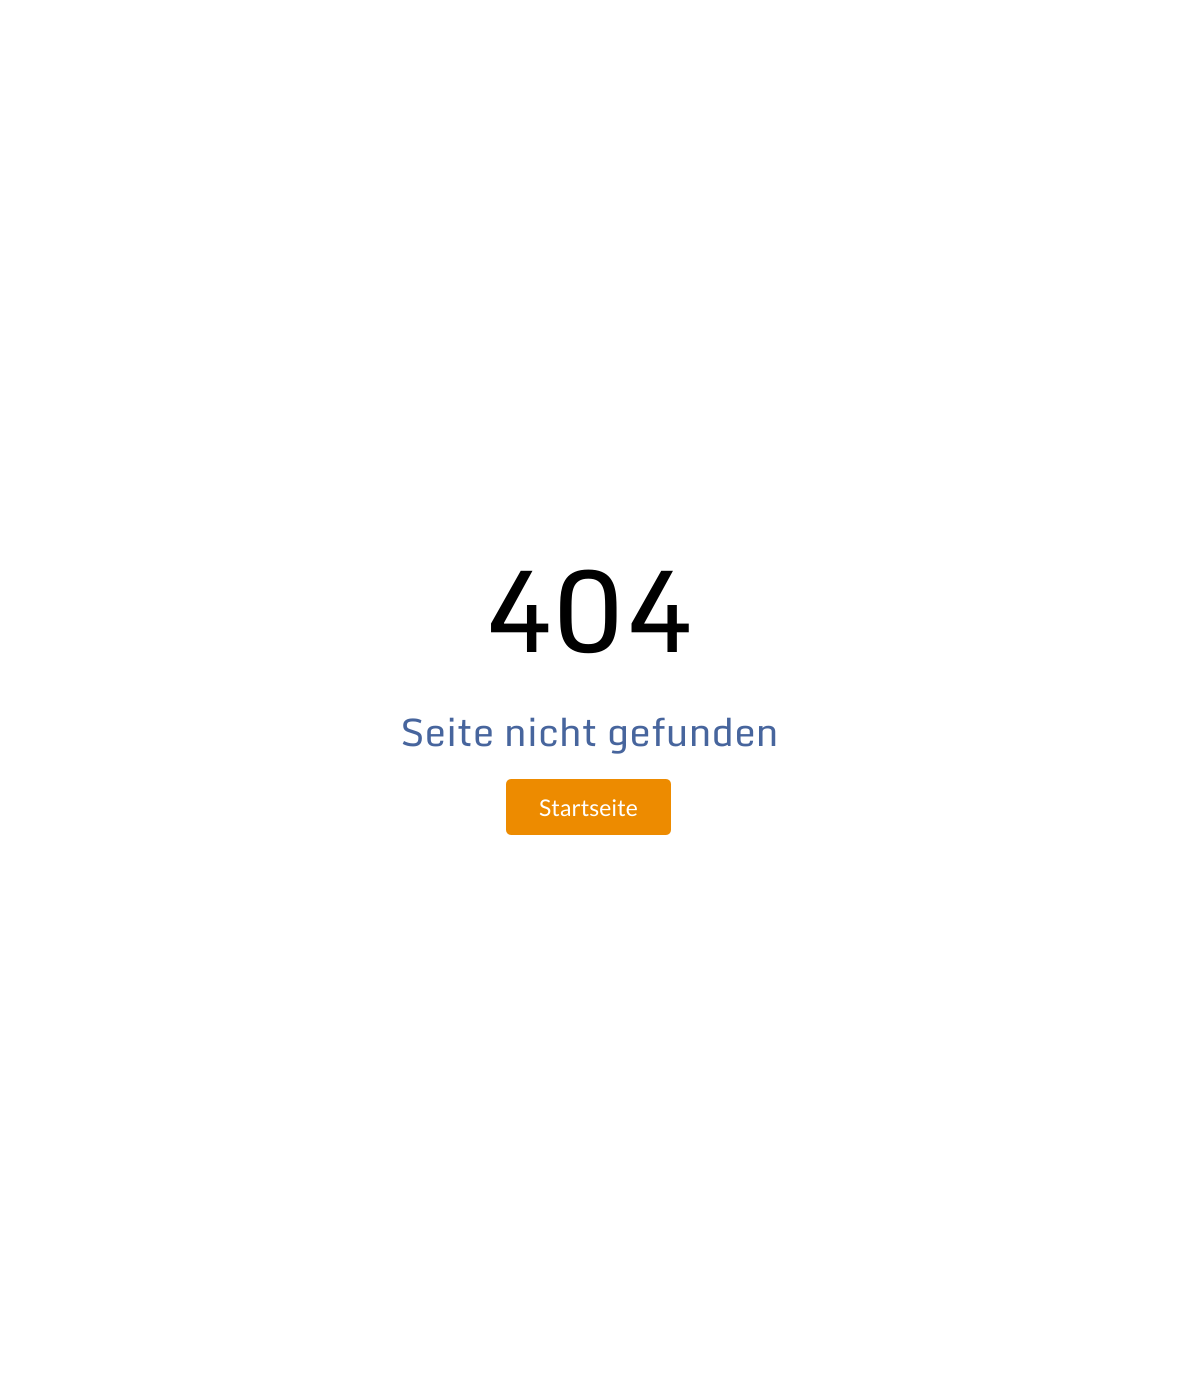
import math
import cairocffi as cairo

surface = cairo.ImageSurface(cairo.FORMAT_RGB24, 1177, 1385)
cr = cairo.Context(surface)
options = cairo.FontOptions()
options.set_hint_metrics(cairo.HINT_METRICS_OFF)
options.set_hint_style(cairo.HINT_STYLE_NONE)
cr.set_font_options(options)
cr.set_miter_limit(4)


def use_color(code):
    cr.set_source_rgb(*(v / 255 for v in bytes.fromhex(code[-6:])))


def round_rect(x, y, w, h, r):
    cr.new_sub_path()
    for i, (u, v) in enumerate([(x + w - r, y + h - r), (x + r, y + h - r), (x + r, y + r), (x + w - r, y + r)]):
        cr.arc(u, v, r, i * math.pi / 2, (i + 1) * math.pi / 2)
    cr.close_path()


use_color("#ffffff")
cr.paint()
cr.select_font_face("Monda")
cr.set_font_size(115)
use_color("#000000")
cr.move_to(483, 652)
cr.show_text("404")
cr.set_font_size(38.5)
use_color("#47659d")
cr.move_to(400, 746)
cr.show_text("Seite nicht gefunden")
use_color("#ed8b00")
round_rect(507.5, 780.5, 162, 53, 3.5)
cr.fill_preserve()
cr.set_line_width(3)
cr.stroke()
cr.select_font_face("Lato")
cr.set_font_size(23)
use_color("#ffffff")
cr.move_to(539, 816)
cr.show_text("Startseite")
surface.write_to_png("result.png")
